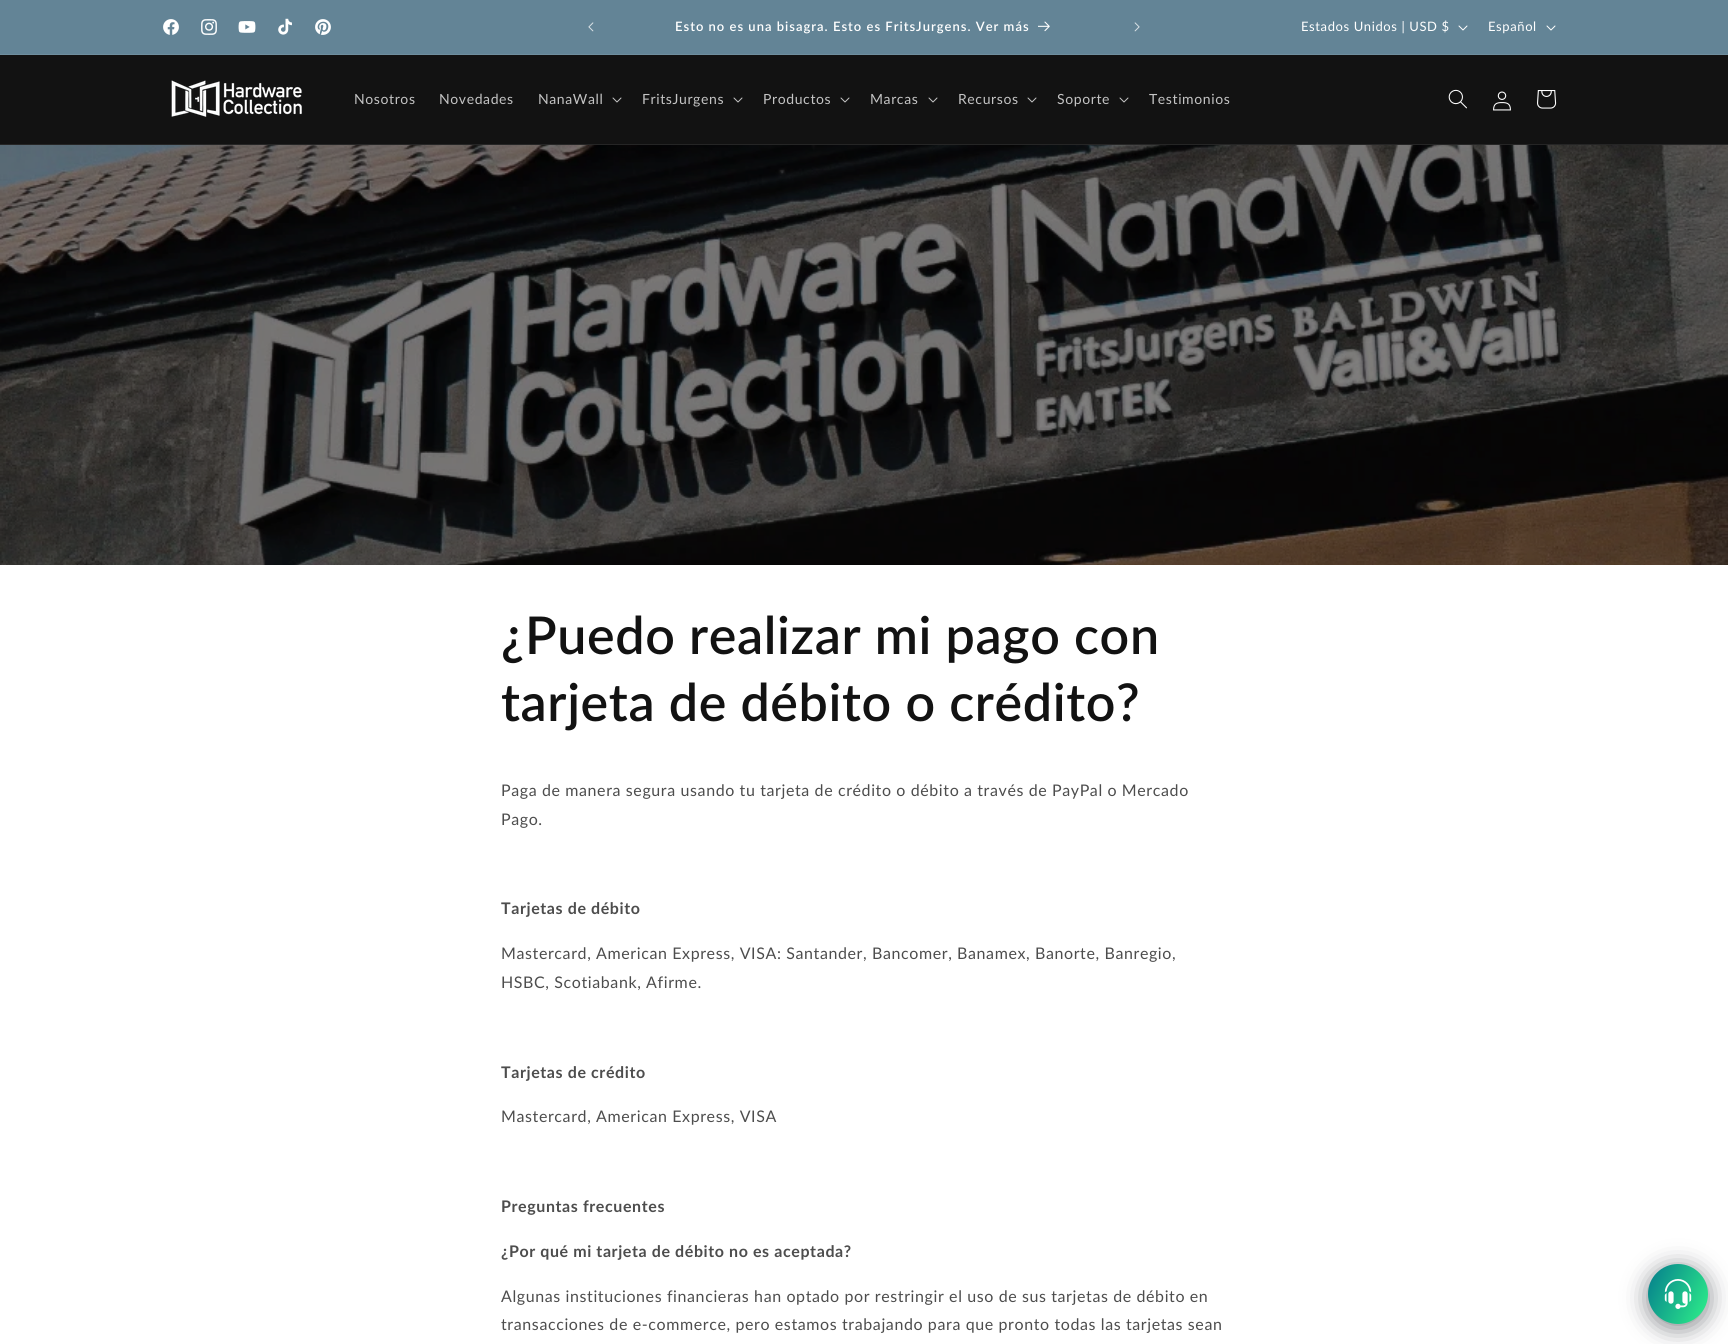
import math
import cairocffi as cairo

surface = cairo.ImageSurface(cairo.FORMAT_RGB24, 1728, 1344)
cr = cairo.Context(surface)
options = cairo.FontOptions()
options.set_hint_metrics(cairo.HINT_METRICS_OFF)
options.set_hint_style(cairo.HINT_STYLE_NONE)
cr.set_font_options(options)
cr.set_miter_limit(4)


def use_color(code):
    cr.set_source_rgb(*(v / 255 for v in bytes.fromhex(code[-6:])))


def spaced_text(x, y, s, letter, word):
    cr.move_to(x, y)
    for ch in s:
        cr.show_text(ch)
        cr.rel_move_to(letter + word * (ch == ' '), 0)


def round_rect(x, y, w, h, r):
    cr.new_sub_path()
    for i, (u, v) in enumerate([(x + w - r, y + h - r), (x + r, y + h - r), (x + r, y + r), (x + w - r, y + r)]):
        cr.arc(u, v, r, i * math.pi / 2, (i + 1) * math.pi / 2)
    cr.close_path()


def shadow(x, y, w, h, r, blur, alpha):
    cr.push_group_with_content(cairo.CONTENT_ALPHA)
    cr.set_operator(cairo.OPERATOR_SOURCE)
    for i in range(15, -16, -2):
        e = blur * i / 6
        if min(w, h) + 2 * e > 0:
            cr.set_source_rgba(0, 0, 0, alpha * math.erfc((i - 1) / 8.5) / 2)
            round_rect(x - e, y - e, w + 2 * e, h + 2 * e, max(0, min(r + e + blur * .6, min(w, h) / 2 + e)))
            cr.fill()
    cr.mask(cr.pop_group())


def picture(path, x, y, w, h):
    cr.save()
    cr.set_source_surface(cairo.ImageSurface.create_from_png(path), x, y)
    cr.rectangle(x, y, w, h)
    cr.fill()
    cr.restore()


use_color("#ffffff")
cr.paint()
use_color("#638496")
cr.rectangle(0, 0, 1728, 54)
cr.fill()
use_color("#6f8e9e")
cr.rectangle(0, 54, 1728, 1)
cr.fill()
picture("img1.png", 163, 19, 16, 16)
picture("img2.png", 201, 19, 16, 16)
picture("img3.png", 238, 21, 18, 12)
picture("img4.png", 278, 18, 14, 17)
picture("img5.png", 315, 19, 16, 16)
picture("img6.png", 588, 22, 6, 10)
cr.select_font_face("Lato SemiBold")
cr.set_font_size(13)
use_color("#ffffff")
spaced_text(675, 31, "Esto no es una bisagra. Esto es FritsJurgens. Ver más", 1, 0)
picture("img7.png", 1038, 21, 12, 11)
picture("img8.png", 1134, 22, 6, 10)
cr.select_font_face("Lato")
spaced_text(1301, 31, "Estados Unidos | USD $", 0.6, 0)
picture("img9.png", 1458, 25, 10, 6)
spaced_text(1488, 31, "Español", 0.6, 0)
picture("img9.png", 1546, 25, 10, 6)
use_color("#121212")
cr.rectangle(0, 55, 1728, 89)
cr.fill()
use_color("#252525")
cr.rectangle(0, 144, 1728, 1)
cr.fill()
picture("img10.png", 171, 80, 131, 37)
cr.set_font_size(14)
use_color("#c4c4c4")
spaced_text(354, 104, "Nosotros", 0.6, 0)
spaced_text(439, 104, "Novedades", 0.6, 0)
spaced_text(538, 104, "NanaWall", 0.6, 0)
picture("img11.png", 612, 97, 10, 6)
spaced_text(642, 104, "FritsJurgens", 0.6, 0)
picture("img11.png", 733, 97, 10, 6)
spaced_text(763, 104, "Productos", 0.6, 0)
picture("img11.png", 840, 97, 10, 6)
spaced_text(870, 104, "Marcas", 0.6, 0)
picture("img11.png", 928, 97, 10, 6)
spaced_text(958, 104, "Recursos", 0.6, 0)
picture("img11.png", 1027, 97, 10, 6)
spaced_text(1057, 104, "Soporte", 0.6, 0)
picture("img11.png", 1119, 97, 10, 6)
spaced_text(1149, 104, "Testimonios", 0.6, 0)
picture("img12.png", 1448, 89, 19, 20)
picture("img13.png", 1493, 91, 18, 20)
picture("img14.png", 1537, 90, 20, 19)
picture("img15.png", 0, 145, 1728, 420)
cr.select_font_face("Lato SemiBold")
cr.set_font_size(52)
use_color("#121212")
spaced_text(501, 654, "¿Puedo realizar mi pago con", 0.6, 0)
spaced_text(501, 721, "tarjeta de débito o crédito?", 0.6, 0)
cr.select_font_face("Lato")
cr.set_font_size(16)
use_color("#4d4d4d")
spaced_text(501, 796, "Paga de manera segura usando tu tarjeta de crédito o débito a través de PayPal o Mercado", 0.6, 0)
spaced_text(501, 825, "Pago.", 0.6, 0)
cr.select_font_face("Lato", cairo.FONT_SLANT_NORMAL, cairo.FONT_WEIGHT_BOLD)
spaced_text(501, 914, "Tarjetas de débito", 0.6, 0)
cr.select_font_face("Lato")
spaced_text(501, 959, "Mastercard, American Express, VISA: Santander, Bancomer, Banamex, Banorte, Banregio,", 0.6, 0)
spaced_text(501, 988, "HSBC, Scotiabank, Afirme.", 0.6, 0)
cr.select_font_face("Lato", cairo.FONT_SLANT_NORMAL, cairo.FONT_WEIGHT_BOLD)
spaced_text(501, 1078, "Tarjetas de crédito", 0.6, 0)
cr.select_font_face("Lato")
spaced_text(501, 1122, "Mastercard, American Express, VISA", 0.6, 0)
cr.select_font_face("Lato", cairo.FONT_SLANT_NORMAL, cairo.FONT_WEIGHT_BOLD)
spaced_text(501, 1212, "Preguntas frecuentes", 0.6, 0)
spaced_text(501, 1257, "¿Por qué mi tarjeta de débito no es aceptada?", 0.6, 0)
cr.select_font_face("Lato")
spaced_text(501, 1302, "Algunas instituciones financieras han optado por restringir el uso de sus tarjetas de débito en", 0.6, 0)
spaced_text(501, 1330, "transacciones de e-commerce, pero estamos trabajando para que pronto todas las tarjetas sean", 0.6, 0)
use_color("#020610")
shadow(1648, 1268, 60, 60, 30, 12, 0.5)
gradient = cairo.LinearGradient(1642, 1277, 1714, 1311)
gradient.add_color_stop_rgba(0, 0.016, 0.486, 0.553, 1)
gradient.add_color_stop_rgba(1, 0.184, 0.949, 0.537, 1)
cr.set_source(gradient)
cr.arc(1678, 1294, 30, 0, 2 * math.pi)
cr.fill()
picture("img16.png", 1664, 1279, 28, 30)
surface.write_to_png("result.png")
